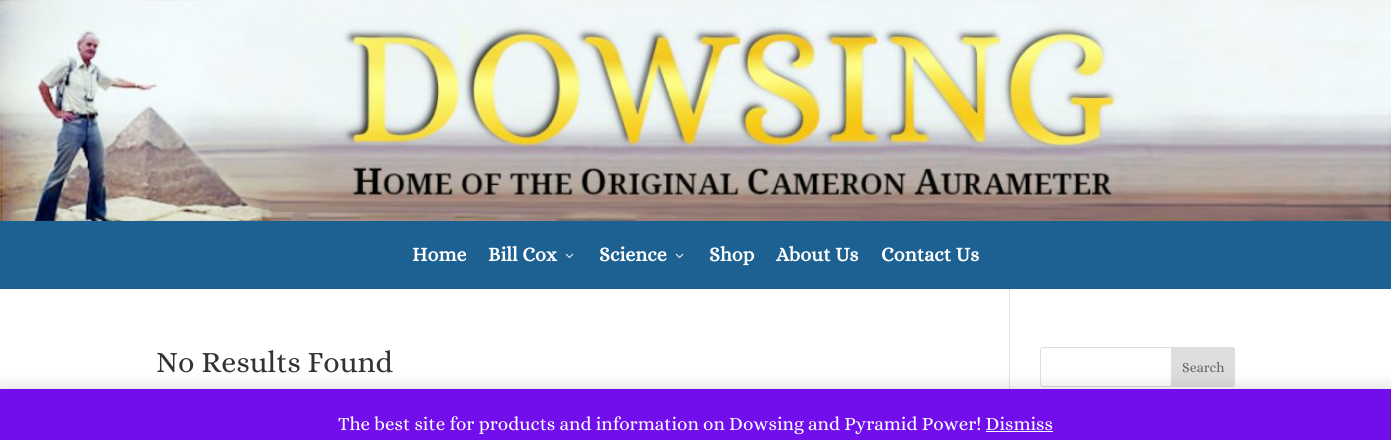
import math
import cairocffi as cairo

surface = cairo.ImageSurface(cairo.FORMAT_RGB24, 1391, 440)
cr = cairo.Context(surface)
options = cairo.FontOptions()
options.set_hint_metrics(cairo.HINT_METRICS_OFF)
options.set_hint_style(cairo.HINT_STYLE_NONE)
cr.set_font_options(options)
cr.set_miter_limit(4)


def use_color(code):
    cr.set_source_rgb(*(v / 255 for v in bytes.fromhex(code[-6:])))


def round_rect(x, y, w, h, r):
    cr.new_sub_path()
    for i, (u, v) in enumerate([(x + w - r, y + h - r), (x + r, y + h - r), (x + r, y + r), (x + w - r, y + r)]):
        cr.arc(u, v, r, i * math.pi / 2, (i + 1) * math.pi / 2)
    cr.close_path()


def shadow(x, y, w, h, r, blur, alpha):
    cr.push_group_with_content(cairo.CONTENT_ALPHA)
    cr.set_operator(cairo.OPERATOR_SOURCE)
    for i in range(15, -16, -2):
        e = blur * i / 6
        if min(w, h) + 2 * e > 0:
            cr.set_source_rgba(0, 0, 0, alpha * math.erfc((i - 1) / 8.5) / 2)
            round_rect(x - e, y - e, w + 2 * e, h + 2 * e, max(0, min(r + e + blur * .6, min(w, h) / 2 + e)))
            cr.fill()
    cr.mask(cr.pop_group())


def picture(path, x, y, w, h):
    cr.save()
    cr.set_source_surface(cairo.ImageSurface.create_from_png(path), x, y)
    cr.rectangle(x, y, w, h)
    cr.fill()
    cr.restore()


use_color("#ffffff")
cr.paint()
picture("img1.png", 0, 0, 1391, 221)
use_color("#1d6192")
cr.rectangle(0, 221, 1391, 68)
cr.fill()
cr.select_font_face("Alice", cairo.FONT_SLANT_NORMAL, cairo.FONT_WEIGHT_BOLD)
cr.set_font_size(20)
use_color("#ffffff")
cr.move_to(412, 261)
cr.show_text("Home")
cr.move_to(488, 261)
cr.show_text("Bill Cox")
picture("img2.png", 565, 253, 9, 5)
cr.move_to(599, 261)
cr.show_text("Science")
picture("img2.png", 675, 253, 9, 5)
cr.move_to(709, 261)
cr.show_text("Shop")
cr.move_to(776, 261)
cr.show_text("About Us")
cr.move_to(881, 261)
cr.show_text("Contact Us")
use_color("#e2e2e2")
cr.rectangle(1009, 289, 1, 100)
cr.fill()
cr.select_font_face("Alice")
cr.set_font_size(30)
use_color("#333333")
cr.move_to(156, 372)
cr.show_text("No Results Found")
round_rect(1040.5, 347.5, 194, 39, 2.5)
use_color("#dddddd")
cr.set_line_width(1)
cr.stroke()
cr.new_path()
cr.move_to(1171.5, 347.5)
cr.line_to(1232, 347.5)
cr.curve_to(1233.5, 347.5, 1234.5, 348.5, 1234.5, 350)
cr.line_to(1234.5, 384)
cr.curve_to(1234.5, 385.5, 1233.5, 386.5, 1232, 386.5)
cr.line_to(1171.5, 386.5)
cr.close_path()
cr.fill_preserve()
cr.stroke()
cr.set_font_size(14)
use_color("#666666")
cr.move_to(1182, 372)
cr.show_text("Search")
use_color("#000000")
shadow(0, 390, 1391, 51, 0, 9.5, 0.2)
use_color("#720eec")
cr.rectangle(0, 389, 1391, 51)
cr.fill()
cr.set_font_size(19)
use_color("#ffffff")
cr.move_to(338, 430)
cr.show_text("The best site for products and information on Dowsing and Pyramid Power! Dismiss")
use_color("#fcfbfe")
cr.rectangle(986, 431, 67, 1)
cr.fill()
surface.write_to_png("result.png")
